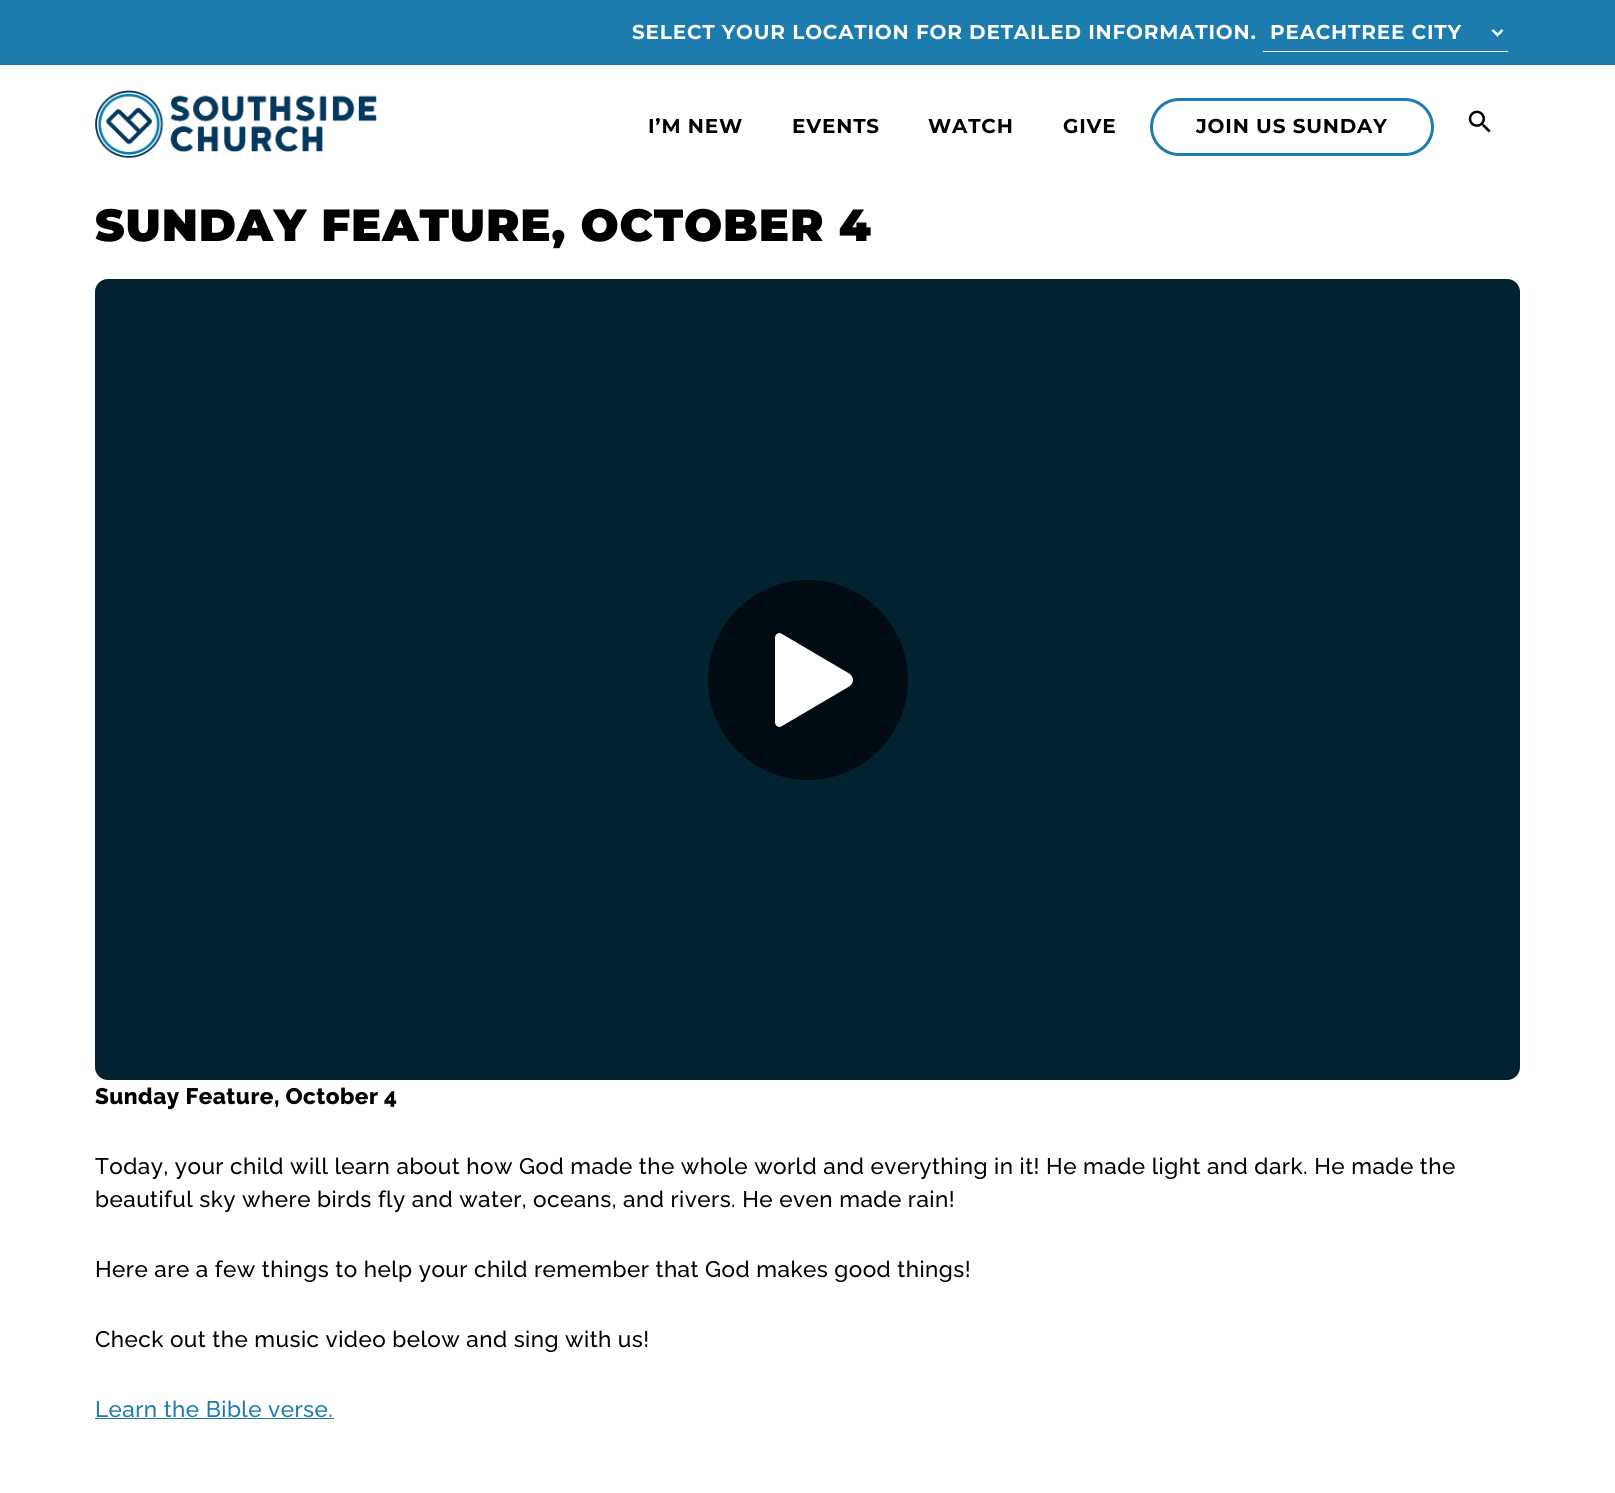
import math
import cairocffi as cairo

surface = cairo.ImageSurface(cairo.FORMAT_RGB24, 1615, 1493)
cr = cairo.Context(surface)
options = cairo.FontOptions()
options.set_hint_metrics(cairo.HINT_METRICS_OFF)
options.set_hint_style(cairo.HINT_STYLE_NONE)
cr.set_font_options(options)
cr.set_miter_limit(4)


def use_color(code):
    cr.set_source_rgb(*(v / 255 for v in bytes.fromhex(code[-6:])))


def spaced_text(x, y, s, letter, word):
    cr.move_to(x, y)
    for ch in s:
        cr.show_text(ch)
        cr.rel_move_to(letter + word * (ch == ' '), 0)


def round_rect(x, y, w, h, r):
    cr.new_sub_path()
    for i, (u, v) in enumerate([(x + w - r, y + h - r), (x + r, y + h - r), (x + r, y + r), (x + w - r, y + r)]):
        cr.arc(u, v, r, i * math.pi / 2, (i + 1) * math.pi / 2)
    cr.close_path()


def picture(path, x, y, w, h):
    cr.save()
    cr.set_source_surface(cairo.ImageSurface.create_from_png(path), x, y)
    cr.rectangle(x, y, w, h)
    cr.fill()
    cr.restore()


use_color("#ffffff")
cr.paint()
use_color("#1c7cad")
cr.rectangle(0, 0, 1615, 65)
cr.fill()
cr.select_font_face("Montserrat", cairo.FONT_SLANT_NORMAL, cairo.FONT_WEIGHT_BOLD)
cr.set_font_size(20)
use_color("#ffffff")
spaced_text(632, 39, "SELECT YOUR LOCATION FOR DETAILED INFORMATION.", 0.8, 0)
cr.rectangle(1263, 51, 245, 1)
cr.fill()
cr.new_path()
cr.move_to(1492.5, 30)
cr.line_to(1497.5, 35)
cr.line_to(1502.5, 30)
cr.set_line_width(2.5)
cr.stroke()
spaced_text(1270, 39, "PEACHTREE CITY", 0.8, 0)
picture("img1.png", 95, 90, 282, 68)
use_color("#000000")
spaced_text(648, 133, "I’M NEW", 0.8, 0)
spaced_text(792, 133, "EVENTS", 0.8, 0)
spaced_text(928, 133, "WATCH", 0.8, 0)
spaced_text(1063, 133, "GIVE", 0.8, 0)
round_rect(1151.5, 99.5, 281, 55, 27.5)
use_color("#1c7cad")
cr.set_line_width(3)
cr.stroke()
use_color("#000000")
spaced_text(1196, 133, "JOIN US SUNDAY", 0.8, 0)
picture("img2.png", 1468, 110, 23, 23)
cr.select_font_face("Montserrat Black")
cr.set_font_size(45)
spaced_text(95, 241, "SUNDAY FEATURE, OCTOBER 4", 0.9, 0)
use_color("#012b3c")
round_rect(95, 279, 1425, 801, 13)
cr.fill()
cr.set_source_rgba(0, 0, 0, 0.2)
round_rect(95, 279, 1425, 801, 13)
cr.fill()
use_color("#000c11")
cr.arc(808, 680, 100, 0, 2 * math.pi)
cr.fill()
use_color("#ffffff")
cr.new_path()
cr.move_to(850, 674)
cr.curve_to(852, 676, 853, 678, 853, 680)
cr.curve_to(853, 682, 852, 684, 850, 686)
cr.line_to(782, 726)
cr.line_to(780, 727)
cr.curve_to(777, 727, 775, 725, 775, 722)
cr.line_to(775, 638)
cr.curve_to(775, 635, 777, 633, 780, 633)
cr.line_to(782, 634)
cr.close_path()
cr.fill()
cr.select_font_face("Raleway ExtraBold")
cr.set_font_size(22.5)
use_color("#000000")
spaced_text(95, 1104, "Sunday Feature, October 4", 0.45, 0)
cr.select_font_face("Raleway Medium")
spaced_text(95, 1174, "Today, your child will learn about how God made the whole world and everything in it! He made light and dark. He made the", 0.45, 0)
spaced_text(95, 1207, "beautiful sky where birds fly and water, oceans, and rivers. He even made rain!", 0.45, 0)
spaced_text(95, 1277, "Here are a few things to help your child remember that God makes good things!", 0.45, 0)
spaced_text(95, 1347, "Check out the music video below and sing with us!", 0.45, 0)
use_color("#1c7cad")
spaced_text(95, 1417, "Learn the Bible verse.", 0.45, 0)
cr.rectangle(95, 1418, 239, 1)
cr.fill()
surface.write_to_png("result.png")
